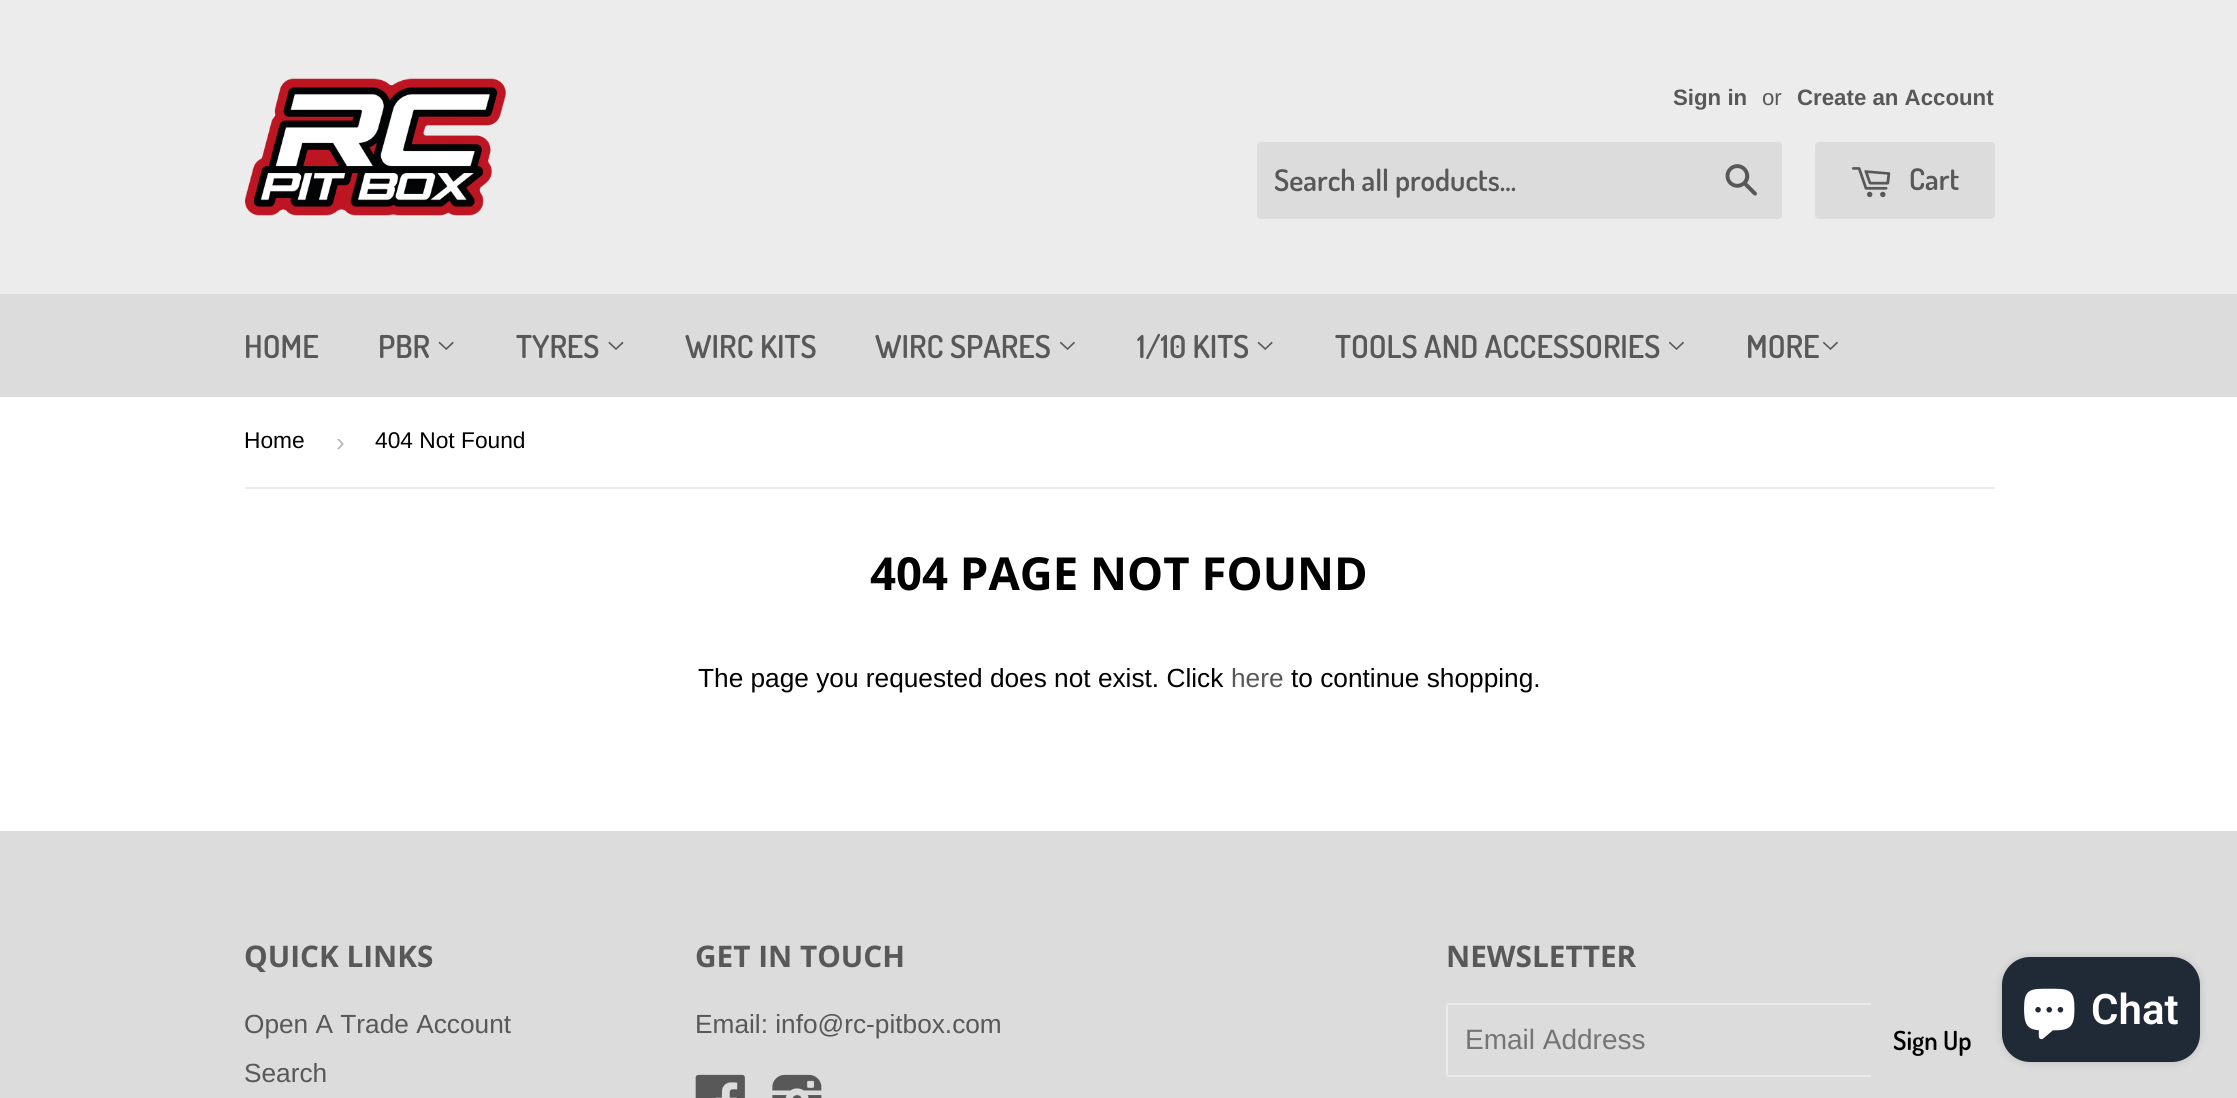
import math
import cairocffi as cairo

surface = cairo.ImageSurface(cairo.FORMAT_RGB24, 2237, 1098)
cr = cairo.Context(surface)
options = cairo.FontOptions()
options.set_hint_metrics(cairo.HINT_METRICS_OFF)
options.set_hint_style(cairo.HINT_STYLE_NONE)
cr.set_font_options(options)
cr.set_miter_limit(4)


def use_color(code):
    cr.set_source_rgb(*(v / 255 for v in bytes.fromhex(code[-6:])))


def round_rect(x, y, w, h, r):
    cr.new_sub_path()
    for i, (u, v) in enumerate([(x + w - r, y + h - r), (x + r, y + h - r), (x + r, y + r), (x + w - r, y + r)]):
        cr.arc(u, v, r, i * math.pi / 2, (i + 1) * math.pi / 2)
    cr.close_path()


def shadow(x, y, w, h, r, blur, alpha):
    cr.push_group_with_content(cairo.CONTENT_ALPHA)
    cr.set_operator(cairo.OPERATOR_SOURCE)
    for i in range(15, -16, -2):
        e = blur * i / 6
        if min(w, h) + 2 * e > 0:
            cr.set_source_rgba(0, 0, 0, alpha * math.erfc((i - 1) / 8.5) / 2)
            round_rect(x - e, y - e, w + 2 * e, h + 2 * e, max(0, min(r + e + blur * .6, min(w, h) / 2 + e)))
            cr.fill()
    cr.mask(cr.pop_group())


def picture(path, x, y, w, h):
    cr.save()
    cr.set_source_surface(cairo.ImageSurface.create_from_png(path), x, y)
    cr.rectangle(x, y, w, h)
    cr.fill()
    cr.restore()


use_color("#ffffff")
cr.paint()
use_color("#ececec")
cr.rectangle(0, 0, 2237, 294)
cr.fill()
picture("img1.png", 245, 78, 261, 138)
cr.select_font_face("Liberation Sans", cairo.FONT_SLANT_NORMAL, cairo.FONT_WEIGHT_BOLD)
cr.set_font_size(22.25)
use_color("#585858")
cr.move_to(1673, 105)
cr.show_text("Sign in")
cr.select_font_face("Liberation Sans")
cr.move_to(1762, 105)
cr.show_text("or")
cr.select_font_face("Liberation Sans", cairo.FONT_SLANT_NORMAL, cairo.FONT_WEIGHT_BOLD)
cr.move_to(1797, 105)
cr.show_text("Create an Account")
use_color("#dcdcdc")
round_rect(1257, 142, 525, 77, 4)
cr.fill()
cr.select_font_face("Dosis SemiBold")
cr.set_font_size(29.75)
use_color("#585858")
cr.move_to(1274, 191)
cr.show_text("Search all products...")
picture("img2.png", 1725, 164, 32, 32)
use_color("#dcdcdc")
round_rect(1815, 142, 180, 77, 4)
cr.fill()
picture("img3.png", 1851, 167, 40, 31)
use_color("#585858")
cr.move_to(1909, 190)
cr.show_text("Cart")
use_color("#dcdcdc")
cr.rectangle(0, 294, 2237, 103)
cr.fill()
cr.set_font_size(31.5)
use_color("#585858")
cr.move_to(244, 358)
cr.show_text("HOME")
cr.move_to(378, 358)
cr.show_text("PBR")
picture("img4.png", 438, 341, 16, 9)
cr.move_to(516, 358)
cr.show_text("TYRES")
picture("img5.png", 608, 341, 16, 9)
cr.move_to(685, 358)
cr.show_text("WIRC KITS")
cr.move_to(875, 358)
cr.show_text("WIRC SPARES")
picture("img6.png", 1060, 341, 15, 9)
cr.move_to(1137, 358)
cr.show_text("1/10 KITS")
picture("img4.png", 1257, 341, 16, 9)
cr.move_to(1335, 358)
cr.show_text("TOOLS AND ACCESSORIES")
picture("img6.png", 1669, 341, 15, 9)
cr.move_to(1746, 358)
cr.show_text("MORE")
picture("img6.png", 1823, 341, 15, 9)
use_color("#ececec")
cr.rectangle(245, 487, 1750, 2)
cr.fill()
cr.select_font_face("Liberation Sans")
cr.set_font_size(22.75)
use_color("#000000")
cr.move_to(244, 448)
cr.show_text("Home")
cr.set_font_size(26.25)
use_color("#bbbbbb")
cr.move_to(336, 451)
cr.show_text("›")
cr.set_font_size(22.75)
use_color("#000000")
cr.move_to(375, 448)
cr.show_text("404 Not Found")
cr.select_font_face("Open Sans", cairo.FONT_SLANT_NORMAL, cairo.FONT_WEIGHT_BOLD)
cr.set_font_size(45.5)
cr.move_to(870, 590)
cr.show_text("404 PAGE NOT FOUND")
cr.select_font_face("Liberation Sans")
cr.set_font_size(26.25)
cr.move_to(698, 687)
cr.show_text("The page you requested does not exist. Click")
use_color("#585858")
cr.move_to(1231, 687)
cr.show_text("here")
use_color("#000000")
cr.move_to(1291, 687)
cr.show_text("to continue shopping.")
use_color("#dcdcdc")
cr.rectangle(0, 831, 2237, 267)
cr.fill()
cr.select_font_face("Open Sans", cairo.FONT_SLANT_NORMAL, cairo.FONT_WEIGHT_BOLD)
cr.set_font_size(29.75)
use_color("#585858")
cr.move_to(244, 967)
cr.show_text("QUICK LINKS")
cr.select_font_face("Liberation Sans")
cr.set_font_size(26.25)
cr.move_to(244, 1033)
cr.show_text("Open A Trade Account")
cr.move_to(244, 1082)
cr.show_text("Search")
cr.select_font_face("Open Sans", cairo.FONT_SLANT_NORMAL, cairo.FONT_WEIGHT_BOLD)
cr.set_font_size(29.75)
cr.move_to(695, 967)
cr.show_text("GET IN TOUCH")
cr.select_font_face("Liberation Sans")
cr.set_font_size(26.25)
cr.move_to(695, 1033)
cr.show_text("Email: info@rc-pitbox.com")
picture("img7.png", 695, 1074, 50, 24)
picture("img8.png", 772, 1074, 50, 24)
cr.select_font_face("Open Sans", cairo.FONT_SLANT_NORMAL, cairo.FONT_WEIGHT_BOLD)
cr.set_font_size(29.75)
cr.move_to(1446, 967)
cr.show_text("NEWSLETTER")
use_color("#ececec")
cr.rectangle(1447, 1003, 424, 2)
cr.fill()
cr.rectangle(1447, 1075, 424, 2)
cr.fill()
cr.rectangle(1446, 1005, 2, 70)
cr.fill()
cr.select_font_face("Liberation Sans")
cr.set_font_size(28)
use_color("#757575")
cr.move_to(1465, 1049)
cr.show_text("Email Address")
cr.select_font_face("Dosis SemiBold")
cr.set_font_size(26.25)
use_color("#000000")
cr.move_to(1893, 1050)
cr.show_text("Sign Up")
use_color("#000000")
shadow(2002, 957, 198, 105, 28, 4.5, 0.15)
use_color("#202a36")
round_rect(2002, 957, 198, 105, 28)
cr.fill()
picture("img9.png", 2024, 988, 51, 52)
cr.select_font_face("Roboto SemiBold")
cr.set_font_size(42)
use_color("#ffffff")
cr.move_to(2091, 1024)
cr.show_text("Chat")
surface.write_to_png("result.png")
